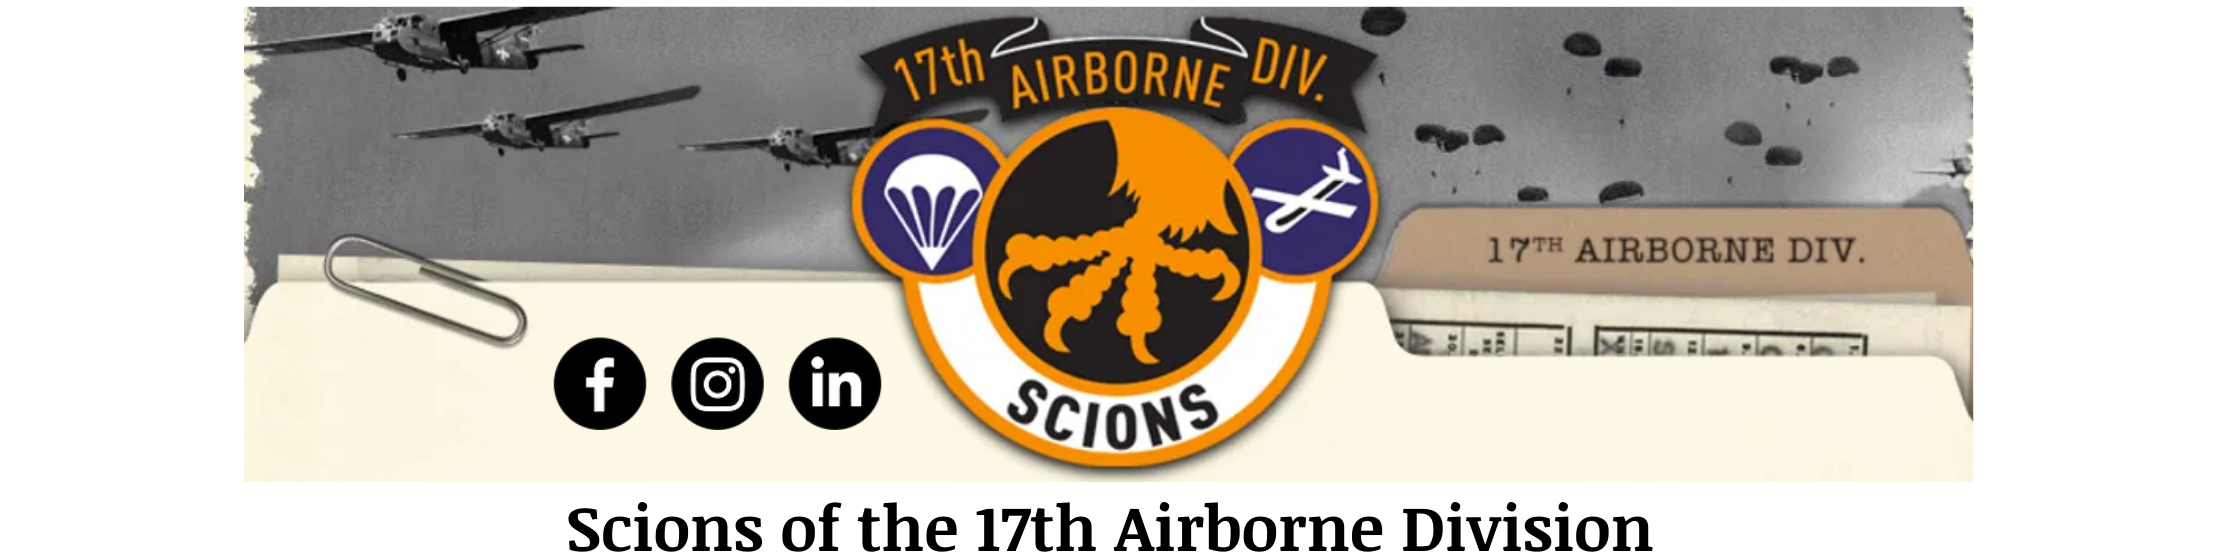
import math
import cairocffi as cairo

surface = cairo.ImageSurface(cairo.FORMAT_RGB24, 2217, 558)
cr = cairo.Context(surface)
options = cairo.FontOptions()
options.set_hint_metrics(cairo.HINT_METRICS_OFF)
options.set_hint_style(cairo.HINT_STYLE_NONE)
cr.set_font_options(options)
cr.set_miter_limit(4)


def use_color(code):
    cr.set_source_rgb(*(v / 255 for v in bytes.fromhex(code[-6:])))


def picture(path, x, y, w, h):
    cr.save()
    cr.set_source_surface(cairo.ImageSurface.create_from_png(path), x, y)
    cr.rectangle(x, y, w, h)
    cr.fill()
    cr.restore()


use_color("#ffffff")
cr.paint()
picture("img1.png", 244, 6, 1730, 476)
picture("img2.png", 553, 337, 94, 93)
picture("img3.png", 671, 337, 93, 93)
picture("img4.png", 788, 337, 94, 93)
cr.select_font_face("Noticia Text", cairo.FONT_SLANT_NORMAL, cairo.FONT_WEIGHT_BOLD)
cr.set_font_size(63.75)
use_color("#000000")
cr.move_to(566, 551)
cr.show_text("Scions of the 17th Airborne Division")
surface.write_to_png("result.png")
